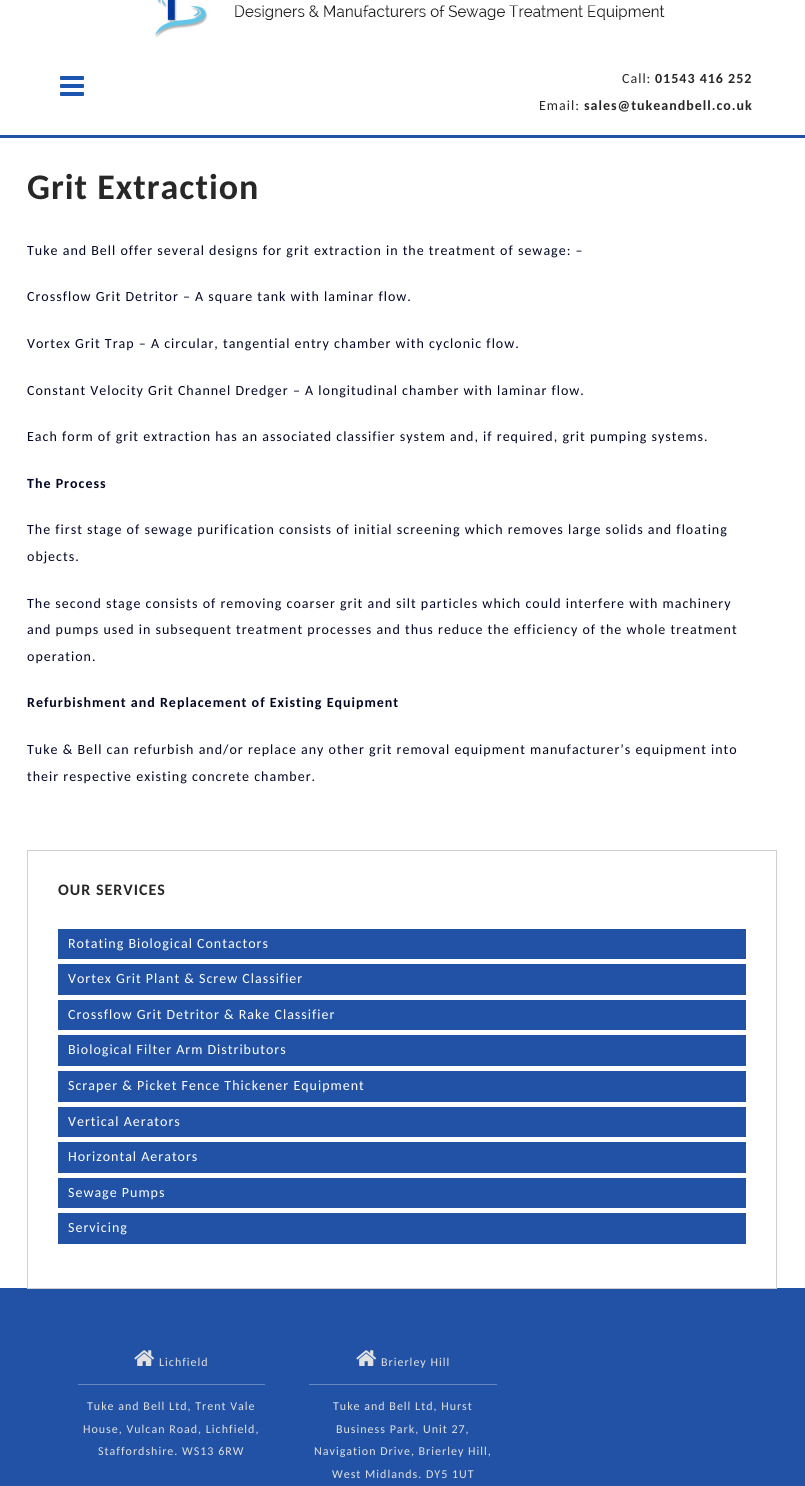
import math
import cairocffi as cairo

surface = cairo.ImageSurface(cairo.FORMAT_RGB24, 805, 1486)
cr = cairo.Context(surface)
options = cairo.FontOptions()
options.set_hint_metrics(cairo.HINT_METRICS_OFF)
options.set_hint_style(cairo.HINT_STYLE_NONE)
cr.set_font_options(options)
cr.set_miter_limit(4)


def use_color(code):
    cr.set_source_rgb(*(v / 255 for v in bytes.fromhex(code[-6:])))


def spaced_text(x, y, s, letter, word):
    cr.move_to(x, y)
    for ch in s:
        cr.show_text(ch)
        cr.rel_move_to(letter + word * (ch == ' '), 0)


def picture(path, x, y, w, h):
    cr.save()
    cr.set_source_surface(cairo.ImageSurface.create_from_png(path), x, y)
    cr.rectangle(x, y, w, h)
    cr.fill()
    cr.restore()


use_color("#ffffff")
cr.paint()
picture("img1.png", 152, 0, 513, 39)
picture("img2.png", 60, 76, 24, 20)
cr.select_font_face("Carlito")
cr.set_font_size(14)
use_color("#272727")
spaced_text(622, 83, "Call:", 1, 0)
cr.select_font_face("Carlito", cairo.FONT_SLANT_NORMAL, cairo.FONT_WEIGHT_BOLD)
spaced_text(655, 83, "01543 416 252", 1, 0)
cr.select_font_face("Carlito")
spaced_text(539, 110, "Email:", 1, 0)
cr.select_font_face("Carlito", cairo.FONT_SLANT_NORMAL, cairo.FONT_WEIGHT_BOLD)
spaced_text(584, 110, "sales@tukeandbell.co.uk", 1, 0)
use_color("#2252a6")
cr.rectangle(0, 135, 805, 3)
cr.fill()
cr.set_font_size(36)
use_color("#272727")
spaced_text(27, 199, "Grit Extraction", 1, 0)
cr.select_font_face("Carlito")
cr.set_font_size(14)
use_color("#020623")
spaced_text(27, 255, "Tuke and Bell offer several designs for grit extraction in the treatment of sewage: –", 1, 0)
spaced_text(27, 301, "Crossflow Grit Detritor – A square tank with laminar flow.", 1, 0)
spaced_text(27, 348, "Vortex Grit Trap – A circular, tangential entry chamber with cyclonic flow.", 1, 0)
spaced_text(27, 395, "Constant Velocity Grit Channel Dredger – A longitudinal chamber with laminar flow.", 1, 0)
spaced_text(27, 441, "Each form of grit extraction has an associated classifier system and, if required, grit pumping systems.", 1, 0)
cr.select_font_face("Carlito", cairo.FONT_SLANT_NORMAL, cairo.FONT_WEIGHT_BOLD)
spaced_text(27, 488, "The Process", 1, 0)
cr.select_font_face("Carlito")
spaced_text(27, 534, "The first stage of sewage purification consists of initial screening which removes large solids and floating", 1, 0)
spaced_text(27, 561, "objects.", 1, 0)
spaced_text(27, 608, "The second stage consists of removing coarser grit and silt particles which could interfere with machinery", 1, 0)
spaced_text(27, 634, "and pumps used in subsequent treatment processes and thus reduce the efficiency of the whole treatment", 1, 0)
spaced_text(27, 661, "operation.", 1, 0)
cr.select_font_face("Carlito", cairo.FONT_SLANT_NORMAL, cairo.FONT_WEIGHT_BOLD)
spaced_text(27, 707, "Refurbishment and Replacement of Existing Equipment", 1, 0)
cr.select_font_face("Carlito")
spaced_text(27, 754, "Tuke & Bell can refurbish and/or replace any other grit removal equipment manufacturer’s equipment into", 1, 0)
spaced_text(27, 781, "their respective existing concrete chamber.", 1, 0)
use_color("#2252a6")
cr.rectangle(0, 1288, 805, 198)
cr.fill()
cr.rectangle(27.5, 850.5, 749, 438)
use_color("#cfcfcf")
cr.set_line_width(1)
cr.stroke()
cr.select_font_face("Carlito", cairo.FONT_SLANT_NORMAL, cairo.FONT_WEIGHT_BOLD)
cr.set_font_size(16)
use_color("#272727")
spaced_text(58, 895, "OUR SERVICES", 1, 0)
use_color("#2252a6")
cr.rectangle(58, 929, 688, 30)
cr.fill()
cr.select_font_face("Carlito")
cr.set_font_size(14)
use_color("#ffffff")
spaced_text(68, 948, "Rotating Biological Contactors", 1, 0)
use_color("#2252a6")
cr.rectangle(58, 964, 688, 31)
cr.fill()
use_color("#ffffff")
spaced_text(68, 983, "Vortex Grit Plant & Screw Classifier", 1, 0)
use_color("#2252a6")
cr.rectangle(58, 1000, 688, 30)
cr.fill()
use_color("#ffffff")
spaced_text(68, 1019, "Crossflow Grit Detritor & Rake Classifier", 1, 0)
use_color("#2252a6")
cr.rectangle(58, 1035, 688, 31)
cr.fill()
use_color("#ffffff")
spaced_text(68, 1054, "Biological Filter Arm Distributors", 1, 0)
use_color("#2252a6")
cr.rectangle(58, 1071, 688, 31)
cr.fill()
use_color("#ffffff")
spaced_text(68, 1090, "Scraper & Picket Fence Thickener Equipment", 1, 0)
use_color("#2252a6")
cr.rectangle(58, 1107, 688, 30)
cr.fill()
use_color("#ffffff")
spaced_text(68, 1126, "Vertical Aerators", 1, 0)
use_color("#2252a6")
cr.rectangle(58, 1142, 688, 31)
cr.fill()
use_color("#ffffff")
spaced_text(68, 1161, "Horizontal Aerators", 1, 0)
use_color("#2252a6")
cr.rectangle(58, 1178, 688, 30)
cr.fill()
use_color("#ffffff")
spaced_text(68, 1197, "Sewage Pumps", 1, 0)
use_color("#2252a6")
cr.rectangle(58, 1213, 688, 31)
cr.fill()
use_color("#ffffff")
spaced_text(68, 1232, "Servicing", 1, 0)
picture("img3.png", 134, 1350, 21, 16)
cr.set_font_size(12)
use_color("#e1e1e1")
spaced_text(159, 1366, "Lichfield", 1, 0)
use_color("#6486c1")
cr.rectangle(78, 1384, 187, 1)
cr.fill()
use_color("#e1e1e1")
spaced_text(87, 1410, "Tuke and Bell Ltd, Trent Vale", 1, 0)
spaced_text(83, 1433, "House, Vulcan Road, Lichfield,", 1, 0)
spaced_text(98, 1455, "Staffordshire. WS13 6RW", 1, 0)
picture("img3.png", 356, 1350, 21, 16)
spaced_text(381, 1366, "Brierley Hill", 1, 0)
use_color("#6486c1")
cr.rectangle(309, 1384, 188, 1)
cr.fill()
use_color("#e1e1e1")
spaced_text(333, 1410, "Tuke and Bell Ltd, Hurst", 1, 0)
spaced_text(336, 1433, "Business Park, Unit 27,", 1, 0)
spaced_text(314, 1455, "Navigation Drive, Brierley Hill,", 1, 0)
spaced_text(332, 1478, "West Midlands. DY5 1UT", 1, 0)
surface.write_to_png("result.png")
